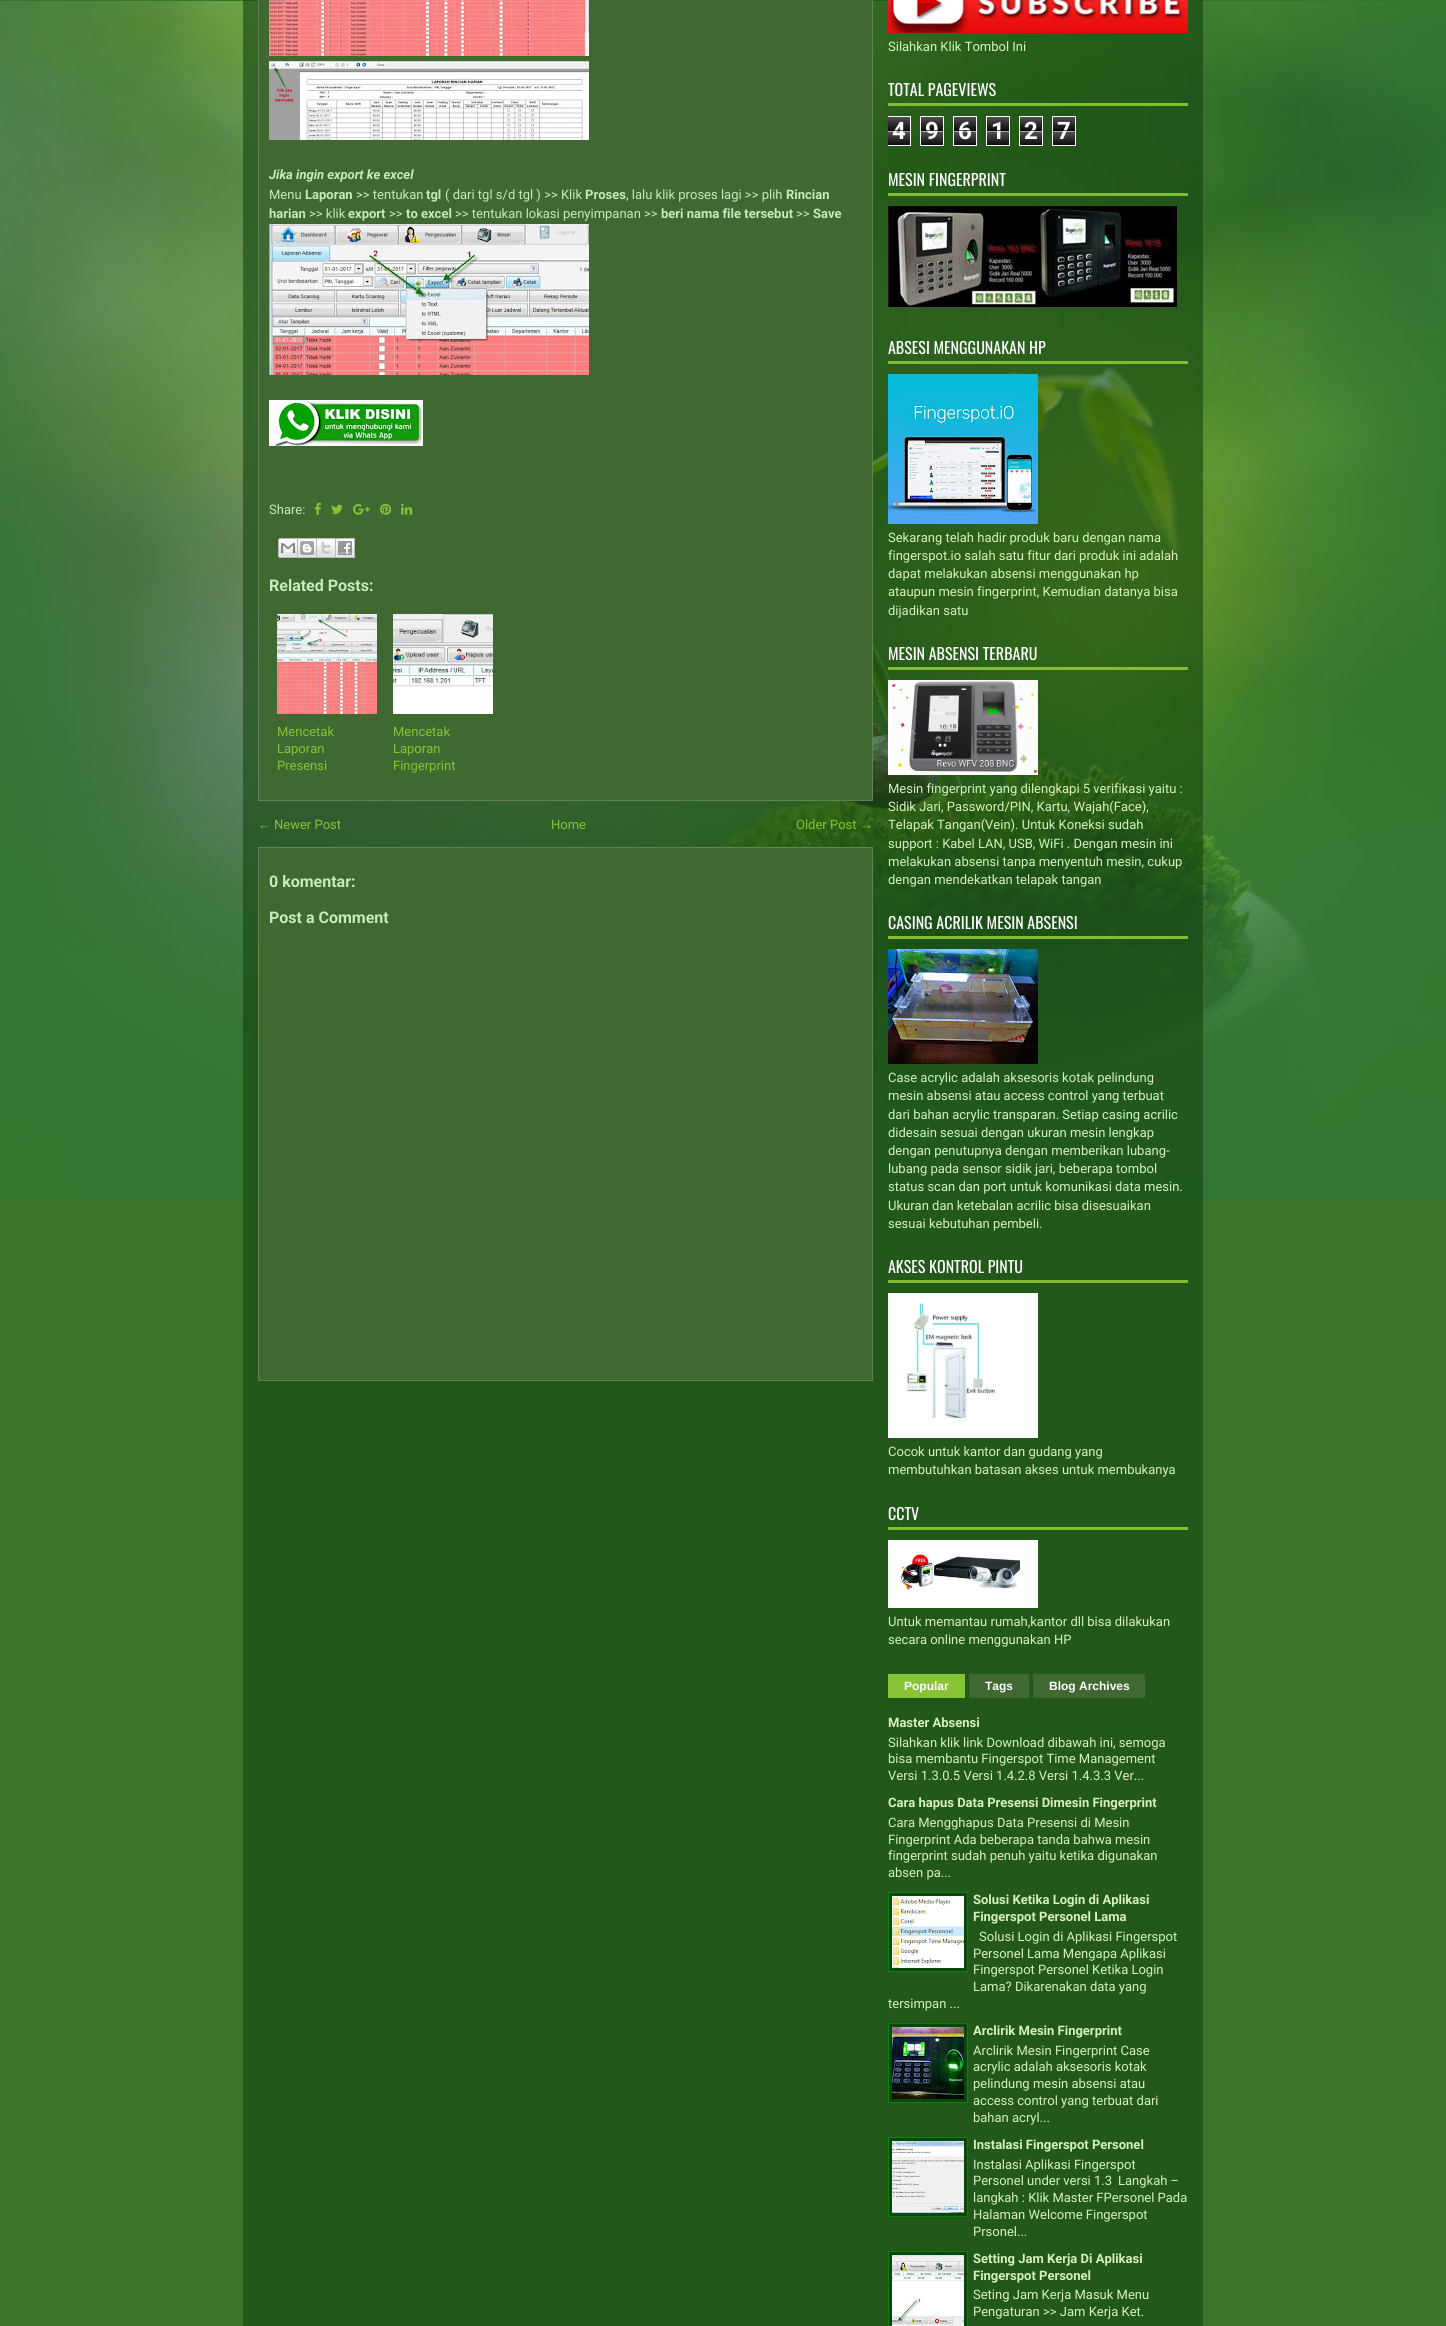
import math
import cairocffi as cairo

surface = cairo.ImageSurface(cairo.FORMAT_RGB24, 1446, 2326)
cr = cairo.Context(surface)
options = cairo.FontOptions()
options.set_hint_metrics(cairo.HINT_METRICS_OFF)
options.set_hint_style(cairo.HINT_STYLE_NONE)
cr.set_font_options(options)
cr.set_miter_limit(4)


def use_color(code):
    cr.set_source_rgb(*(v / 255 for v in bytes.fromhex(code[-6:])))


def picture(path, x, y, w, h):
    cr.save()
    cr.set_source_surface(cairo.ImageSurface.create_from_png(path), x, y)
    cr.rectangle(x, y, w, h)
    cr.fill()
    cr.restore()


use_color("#3b752c")
cr.paint()
picture("img1.png", 0, 0, 1446, 1200)
cr.set_source_rgba(0.075, 0.267, 0.059, 0.6)
cr.rectangle(243, 0, 960, 2326)
cr.fill()
use_color("#3f6931")
cr.rectangle(258.5, -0.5, 614, 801)
cr.fill_preserve()
use_color("#638351")
cr.set_line_width(1)
cr.stroke()
picture("img2.png", 269, 0, 320, 56)
picture("img3.png", 269, 61, 320, 79)
cr.select_font_face("Roboto", cairo.FONT_SLANT_ITALIC, cairo.FONT_WEIGHT_BOLD)
cr.set_font_size(13)
use_color("#c8eabe")
cr.move_to(269, 179)
cr.show_text("Jika ingin export ke excel")
cr.select_font_face("Roboto")
cr.move_to(269, 199)
cr.show_text("Menu")
cr.select_font_face("Roboto", cairo.FONT_SLANT_NORMAL, cairo.FONT_WEIGHT_BOLD)
cr.move_to(305, 199)
cr.show_text("Laporan")
cr.select_font_face("Roboto")
cr.move_to(356, 199)
cr.show_text(">> tentukan")
cr.select_font_face("Roboto", cairo.FONT_SLANT_NORMAL, cairo.FONT_WEIGHT_BOLD)
cr.move_to(426, 199)
cr.show_text("tgl")
cr.select_font_face("Roboto")
cr.move_to(445, 199)
cr.show_text("( dari tgl s/d tgl ) >> Klik")
cr.select_font_face("Roboto", cairo.FONT_SLANT_NORMAL, cairo.FONT_WEIGHT_BOLD)
cr.move_to(585, 199)
cr.show_text("Proses")
cr.select_font_face("Roboto")
cr.move_to(626, 199)
cr.show_text(", lalu klik proses lagi >> plih")
cr.select_font_face("Roboto", cairo.FONT_SLANT_NORMAL, cairo.FONT_WEIGHT_BOLD)
cr.move_to(786, 199)
cr.show_text("Rincian")
cr.move_to(269, 218)
cr.show_text("harian")
cr.select_font_face("Roboto")
cr.move_to(309, 218)
cr.show_text(">> klik")
cr.select_font_face("Roboto", cairo.FONT_SLANT_NORMAL, cairo.FONT_WEIGHT_BOLD)
cr.move_to(348, 218)
cr.show_text("export")
cr.select_font_face("Roboto")
cr.move_to(389, 218)
cr.show_text(">>")
cr.select_font_face("Roboto", cairo.FONT_SLANT_NORMAL, cairo.FONT_WEIGHT_BOLD)
cr.move_to(406, 218)
cr.show_text("to excel")
cr.select_font_face("Roboto")
cr.move_to(455, 218)
cr.show_text(">> tentukan lokasi penyimpanan >>")
cr.select_font_face("Roboto", cairo.FONT_SLANT_NORMAL, cairo.FONT_WEIGHT_BOLD)
cr.move_to(661, 218)
cr.show_text("beri nama file tersebut")
cr.select_font_face("Roboto")
cr.move_to(796, 218)
cr.show_text(">>")
cr.select_font_face("Roboto", cairo.FONT_SLANT_NORMAL, cairo.FONT_WEIGHT_BOLD)
cr.move_to(813, 218)
cr.show_text("Save")
picture("img4.png", 269, 224, 320, 151)
picture("img5.png", 269, 400, 154, 46)
cr.select_font_face("Roboto")
cr.move_to(269, 514)
cr.show_text("Share:")
picture("img6.png", 314, 502, 7, 13)
picture("img7.png", 331, 504, 12, 10)
picture("img8.png", 353, 504, 17, 11)
picture("img9.png", 380, 503, 12, 12)
picture("img10.png", 401, 504, 12, 11)
picture("img11.png", 278, 538, 20, 20)
picture("img12.png", 298, 538, 19, 20)
picture("img13.png", 317, 538, 19, 20)
picture("img14.png", 336, 538, 19, 20)
cr.select_font_face("Roboto", cairo.FONT_SLANT_NORMAL, cairo.FONT_WEIGHT_BOLD)
cr.set_font_size(16)
cr.move_to(269, 591)
cr.show_text("Related Posts:")
picture("img15.png", 277, 614, 100, 100)
cr.select_font_face("Roboto")
cr.set_font_size(13)
use_color("#87c334")
cr.move_to(277, 736)
cr.show_text("Mencetak")
cr.move_to(277, 753)
cr.show_text("Laporan")
cr.move_to(277, 770)
cr.show_text("Presensi")
picture("img16.png", 393, 614, 100, 100)
cr.move_to(393, 736)
cr.show_text("Mencetak")
cr.move_to(393, 753)
cr.show_text("Laporan")
cr.move_to(393, 770)
cr.show_text("Fingerprint")
cr.select_font_face("Liberation Sans")
cr.move_to(258, 829)
cr.show_text("←")
cr.select_font_face("Roboto")
cr.move_to(274, 829)
cr.show_text("Newer Post")
cr.move_to(551, 829)
cr.show_text("Home")
cr.move_to(796, 829)
cr.show_text("Older Post")
cr.select_font_face("Liberation Sans")
cr.move_to(860, 829)
cr.show_text("→")
use_color("#3f6931")
cr.rectangle(258.5, 847.5, 614, 533)
cr.fill_preserve()
use_color("#638351")
cr.stroke()
cr.select_font_face("Roboto", cairo.FONT_SLANT_NORMAL, cairo.FONT_WEIGHT_BOLD)
cr.set_font_size(16)
use_color("#c8eabe")
cr.move_to(269, 887)
cr.show_text("0 komentar:")
cr.move_to(269, 923)
cr.show_text("Post a Comment")
picture("img17.png", 888, 0, 300, 33)
cr.select_font_face("Roboto")
cr.set_font_size(13)
use_color("#d6f1bc")
cr.move_to(888, 51)
cr.show_text("Silahkan Klik Tombol Ini")
use_color("#81bc32")
cr.rectangle(888, 103, 300, 3)
cr.fill()
cr.select_font_face("Oswald")
cr.set_font_size(16)
use_color("#ffffff")
cr.move_to(888, 96)
cr.show_text("TOTAL PAGEVIEWS")
picture("img18.png", 888, 117, 22, 28)
cr.save()
cr.rectangle(888, 0, 300, 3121)
cr.clip()
cr.rectangle(887.5, 116.5, 23, 29)
cr.stroke()
cr.restore()
cr.select_font_face("Roboto", cairo.FONT_SLANT_NORMAL, cairo.FONT_WEIGHT_BOLD)
cr.set_font_size(24)
cr.move_to(892, 139)
cr.show_text("4")
cr.set_source_rgba(0, 0, 0, 0.65)
cr.rectangle(888, 130, 22, 1)
cr.fill()
cr.set_source_rgba(1, 1, 1, 0.65)
cr.rectangle(888, 131, 22, 1)
cr.fill()
picture("img18.png", 921, 117, 22, 28)
cr.rectangle(920.5, 116.5, 23, 29)
use_color("#ffffff")
cr.stroke()
cr.move_to(925, 139)
cr.show_text("9")
cr.set_source_rgba(0, 0, 0, 0.65)
cr.rectangle(921, 130, 22, 1)
cr.fill()
cr.set_source_rgba(1, 1, 1, 0.65)
cr.rectangle(921, 131, 22, 1)
cr.fill()
picture("img18.png", 954, 117, 22, 28)
cr.rectangle(953.5, 116.5, 23, 29)
use_color("#ffffff")
cr.stroke()
cr.move_to(958, 139)
cr.show_text("6")
cr.set_source_rgba(0, 0, 0, 0.65)
cr.rectangle(954, 130, 22, 1)
cr.fill()
cr.set_source_rgba(1, 1, 1, 0.65)
cr.rectangle(954, 131, 22, 1)
cr.fill()
picture("img18.png", 987, 117, 22, 28)
cr.rectangle(986.5, 116.5, 23, 29)
use_color("#ffffff")
cr.stroke()
cr.move_to(991, 139)
cr.show_text("1")
cr.set_source_rgba(0, 0, 0, 0.65)
cr.rectangle(987, 130, 22, 1)
cr.fill()
cr.set_source_rgba(1, 1, 1, 0.65)
cr.rectangle(987, 131, 22, 1)
cr.fill()
picture("img18.png", 1020, 117, 22, 28)
cr.rectangle(1019.5, 116.5, 23, 29)
use_color("#ffffff")
cr.stroke()
cr.move_to(1024, 139)
cr.show_text("2")
cr.set_source_rgba(0, 0, 0, 0.65)
cr.rectangle(1020, 130, 22, 1)
cr.fill()
cr.set_source_rgba(1, 1, 1, 0.65)
cr.rectangle(1020, 131, 22, 1)
cr.fill()
picture("img18.png", 1053, 117, 22, 28)
cr.rectangle(1052.5, 116.5, 23, 29)
use_color("#ffffff")
cr.stroke()
cr.move_to(1057, 139)
cr.show_text("7")
cr.set_source_rgba(0, 0, 0, 0.65)
cr.rectangle(1053, 130, 22, 1)
cr.fill()
cr.set_source_rgba(1, 1, 1, 0.65)
cr.rectangle(1053, 131, 22, 1)
cr.fill()
use_color("#81bc32")
cr.rectangle(888, 193, 300, 3)
cr.fill()
cr.select_font_face("Oswald")
cr.set_font_size(16)
use_color("#ffffff")
cr.move_to(888, 186)
cr.show_text("MESIN FINGERPRINT")
picture("img19.png", 888, 206, 289, 102)
use_color("#81bc32")
cr.rectangle(888, 361, 300, 3)
cr.fill()
use_color("#ffffff")
cr.move_to(888, 354)
cr.show_text("ABSESI MENGGUNAKAN HP")
picture("img20.png", 888, 374, 150, 150)
cr.select_font_face("Roboto")
cr.set_font_size(13)
use_color("#d6f1bc")
cr.move_to(888, 542)
cr.show_text("Sekarang telah hadir produk baru dengan nama")
cr.move_to(888, 560)
cr.show_text("fingerspot.io salah satu fitur dari produk ini adalah")
cr.move_to(888, 578)
cr.show_text("dapat melakukan absensi menggunakan hp")
cr.move_to(888, 596)
cr.show_text("ataupun mesin fingerprint, Kemudian datanya bisa")
cr.move_to(888, 615)
cr.show_text("dijadikan satu")
use_color("#81bc32")
cr.rectangle(888, 667, 300, 3)
cr.fill()
cr.select_font_face("Oswald")
cr.set_font_size(16)
use_color("#ffffff")
cr.move_to(888, 660)
cr.show_text("MESIN ABSENSI TERBARU")
picture("img21.png", 888, 680, 150, 95)
cr.select_font_face("Roboto")
cr.set_font_size(13)
use_color("#d6f1bc")
cr.move_to(888, 793)
cr.show_text("Mesin fingerprint yang dilengkapi 5 verifikasi yaitu :")
cr.move_to(888, 811)
cr.show_text("Sidik Jari, Password/PIN, Kartu, Wajah(Face),")
cr.move_to(888, 829)
cr.show_text("Telapak Tangan(Vein). Untuk Koneksi sudah")
cr.move_to(888, 848)
cr.show_text("support : Kabel LAN, USB, WiFi . Dengan mesin ini")
cr.move_to(888, 866)
cr.show_text("melakukan absensi tanpa menyentuh mesin, cukup")
cr.move_to(888, 884)
cr.show_text("dengan mendekatkan telapak tangan")
use_color("#81bc32")
cr.rectangle(888, 936, 300, 3)
cr.fill()
cr.select_font_face("Oswald")
cr.set_font_size(16)
use_color("#ffffff")
cr.move_to(888, 929)
cr.show_text("CASING ACRILIK MESIN ABSENSI")
picture("img22.png", 888, 949, 150, 115)
cr.select_font_face("Roboto")
cr.set_font_size(13)
use_color("#d6f1bc")
cr.move_to(888, 1082)
cr.show_text("Case acrylic adalah aksesoris kotak pelindung")
cr.move_to(888, 1100)
cr.show_text("mesin absensi atau access control yang terbuat")
cr.move_to(888, 1119)
cr.show_text("dari bahan acrylic transparan. Setiap casing acrilic")
cr.move_to(888, 1137)
cr.show_text("didesain sesuai dengan ukuran mesin lengkap")
cr.move_to(888, 1155)
cr.show_text("dengan penutupnya dengan memberikan lubang-")
cr.move_to(888, 1173)
cr.show_text("lubang pada sensor sidik jari, beberapa tombol")
cr.move_to(888, 1191)
cr.show_text("status scan dan port untuk komunikasi data mesin.")
cr.move_to(888, 1210)
cr.show_text("Ukuran dan ketebalan acrilic bisa disesuaikan")
cr.move_to(888, 1228)
cr.show_text("sesuai kebutuhan pembeli.")
use_color("#81bc32")
cr.rectangle(888, 1280, 300, 3)
cr.fill()
cr.select_font_face("Oswald")
cr.set_font_size(16)
use_color("#ffffff")
cr.move_to(888, 1273)
cr.show_text("AKSES KONTROL PINTU")
picture("img23.png", 888, 1293, 150, 145)
cr.select_font_face("Roboto")
cr.set_font_size(13)
use_color("#d6f1bc")
cr.move_to(888, 1456)
cr.show_text("Cocok untuk kantor dan gudang yang")
cr.move_to(888, 1474)
cr.show_text("membutuhkan batasan akses untuk membukanya")
use_color("#81bc32")
cr.rectangle(888, 1527, 300, 3)
cr.fill()
cr.select_font_face("Oswald")
cr.set_font_size(16)
use_color("#ffffff")
cr.move_to(888, 1520)
cr.show_text("CCTV")
picture("img24.png", 888, 1540, 150, 68)
cr.select_font_face("Roboto")
cr.set_font_size(13)
use_color("#d6f1bc")
cr.move_to(888, 1626)
cr.show_text("Untuk memantau rumah,kantor dll bisa dilakukan")
cr.move_to(888, 1644)
cr.show_text("secara online menggunakan HP")
use_color("#87c334")
cr.rectangle(888, 1674, 77, 24)
cr.fill()
cr.select_font_face("Liberation Sans", cairo.FONT_SLANT_NORMAL, cairo.FONT_WEIGHT_BOLD)
cr.set_font_size(12)
use_color("#ffffff")
cr.move_to(904, 1690)
cr.show_text("Popular")
use_color("#3f6931")
cr.rectangle(969, 1674, 60, 24)
cr.fill()
use_color("#ffffff")
cr.move_to(985, 1690)
cr.show_text("Tags")
use_color("#3f6931")
cr.rectangle(1033, 1674, 112, 24)
cr.fill()
use_color("#ffffff")
cr.move_to(1049, 1690)
cr.show_text("Blog Archives")
cr.select_font_face("Roboto", cairo.FONT_SLANT_NORMAL, cairo.FONT_WEIGHT_BOLD)
cr.set_font_size(13)
use_color("#d6f1bc")
cr.move_to(888, 1727)
cr.show_text("Master Absensi")
cr.select_font_face("Roboto")
cr.move_to(888, 1747)
cr.show_text("Silahkan klik link Download dibawah ini, semoga")
cr.move_to(888, 1763)
cr.show_text("bisa membantu Fingerspot Time Management")
cr.move_to(888, 1780)
cr.show_text("Versi 1.3.0.5 Versi 1.4.2.8 Versi 1.4.3.3 Ver...")
cr.select_font_face("Roboto", cairo.FONT_SLANT_NORMAL, cairo.FONT_WEIGHT_BOLD)
cr.move_to(888, 1807)
cr.show_text("Cara hapus Data Presensi Dimesin Fingerprint")
cr.select_font_face("Roboto")
cr.move_to(888, 1827)
cr.show_text("Cara Mengghapus Data Presensi di Mesin")
cr.move_to(888, 1844)
cr.show_text("Fingerprint Ada beberapa tanda bahwa mesin")
cr.move_to(888, 1860)
cr.show_text("fingerprint sudah penuh yaitu ketika digunakan")
cr.move_to(888, 1877)
cr.show_text("absen pa...")
use_color("#08480b")
cr.rectangle(888.5, 1892.5, 79, 79)
cr.fill_preserve()
use_color("#0e7f13")
cr.stroke()
picture("img25.png", 892, 1896, 72, 72)
cr.select_font_face("Roboto", cairo.FONT_SLANT_NORMAL, cairo.FONT_WEIGHT_BOLD)
use_color("#d6f1bc")
cr.move_to(973, 1904)
cr.show_text("Solusi Ketika Login di Aplikasi")
cr.move_to(973, 1921)
cr.show_text("Fingerspot Personel Lama")
cr.select_font_face("Roboto")
cr.move_to(979, 1941)
cr.show_text("Solusi Login di Aplikasi Fingerspot")
cr.move_to(973, 1958)
cr.show_text("Personel Lama Mengapa Aplikasi")
cr.move_to(973, 1974)
cr.show_text("Fingerspot Personel Ketika Login")
cr.move_to(973, 1991)
cr.show_text("Lama? Dikarenakan data yang")
cr.move_to(888, 2008)
cr.show_text("tersimpan ...")
use_color("#08480b")
cr.rectangle(888.5, 2023.5, 79, 79)
cr.fill_preserve()
use_color("#0e7f13")
cr.stroke()
picture("img26.png", 892, 2027, 72, 72)
cr.select_font_face("Roboto", cairo.FONT_SLANT_NORMAL, cairo.FONT_WEIGHT_BOLD)
use_color("#d6f1bc")
cr.move_to(973, 2035)
cr.show_text("Arclirik Mesin Fingerprint")
cr.select_font_face("Roboto")
cr.move_to(973, 2055)
cr.show_text("Arclirik Mesin Fingerprint Case")
cr.move_to(973, 2071)
cr.show_text("acrylic adalah aksesoris kotak")
cr.move_to(973, 2088)
cr.show_text("pelindung mesin absensi atau")
cr.move_to(973, 2105)
cr.show_text("access control yang terbuat dari")
cr.move_to(973, 2122)
cr.show_text("bahan acryl...")
use_color("#08480b")
cr.rectangle(888.5, 2137.5, 79, 79)
cr.fill_preserve()
use_color("#0e7f13")
cr.stroke()
picture("img27.png", 892, 2141, 72, 72)
cr.select_font_face("Roboto", cairo.FONT_SLANT_NORMAL, cairo.FONT_WEIGHT_BOLD)
use_color("#d6f1bc")
cr.move_to(973, 2149)
cr.show_text("Instalasi Fingerspot Personel")
cr.select_font_face("Roboto")
cr.move_to(973, 2169)
cr.show_text("Instalasi Aplikasi Fingerspot")
cr.move_to(973, 2185)
cr.show_text("Personel under versi 1.3")
cr.move_to(1118, 2185)
cr.show_text("Langkah –")
cr.move_to(973, 2202)
cr.show_text("langkah : Klik Master FPersonel Pada")
cr.move_to(973, 2219)
cr.show_text("Halaman Welcome Fingerspot")
cr.move_to(973, 2236)
cr.show_text("Prsonel...")
use_color("#08480b")
cr.rectangle(888.5, 2251.5, 79, 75)
cr.fill_preserve()
use_color("#0e7f13")
cr.stroke()
picture("img28.png", 892, 2255, 72, 71)
cr.select_font_face("Roboto", cairo.FONT_SLANT_NORMAL, cairo.FONT_WEIGHT_BOLD)
use_color("#d6f1bc")
cr.move_to(973, 2263)
cr.show_text("Setting Jam Kerja Di Aplikasi")
cr.move_to(973, 2280)
cr.show_text("Fingerspot Personel")
cr.select_font_face("Roboto")
cr.move_to(973, 2299)
cr.show_text("Seting Jam Kerja Masuk Menu")
cr.move_to(973, 2316)
cr.show_text("Pengaturan >> Jam Kerja Ket.")
surface.write_to_png("result.png")
